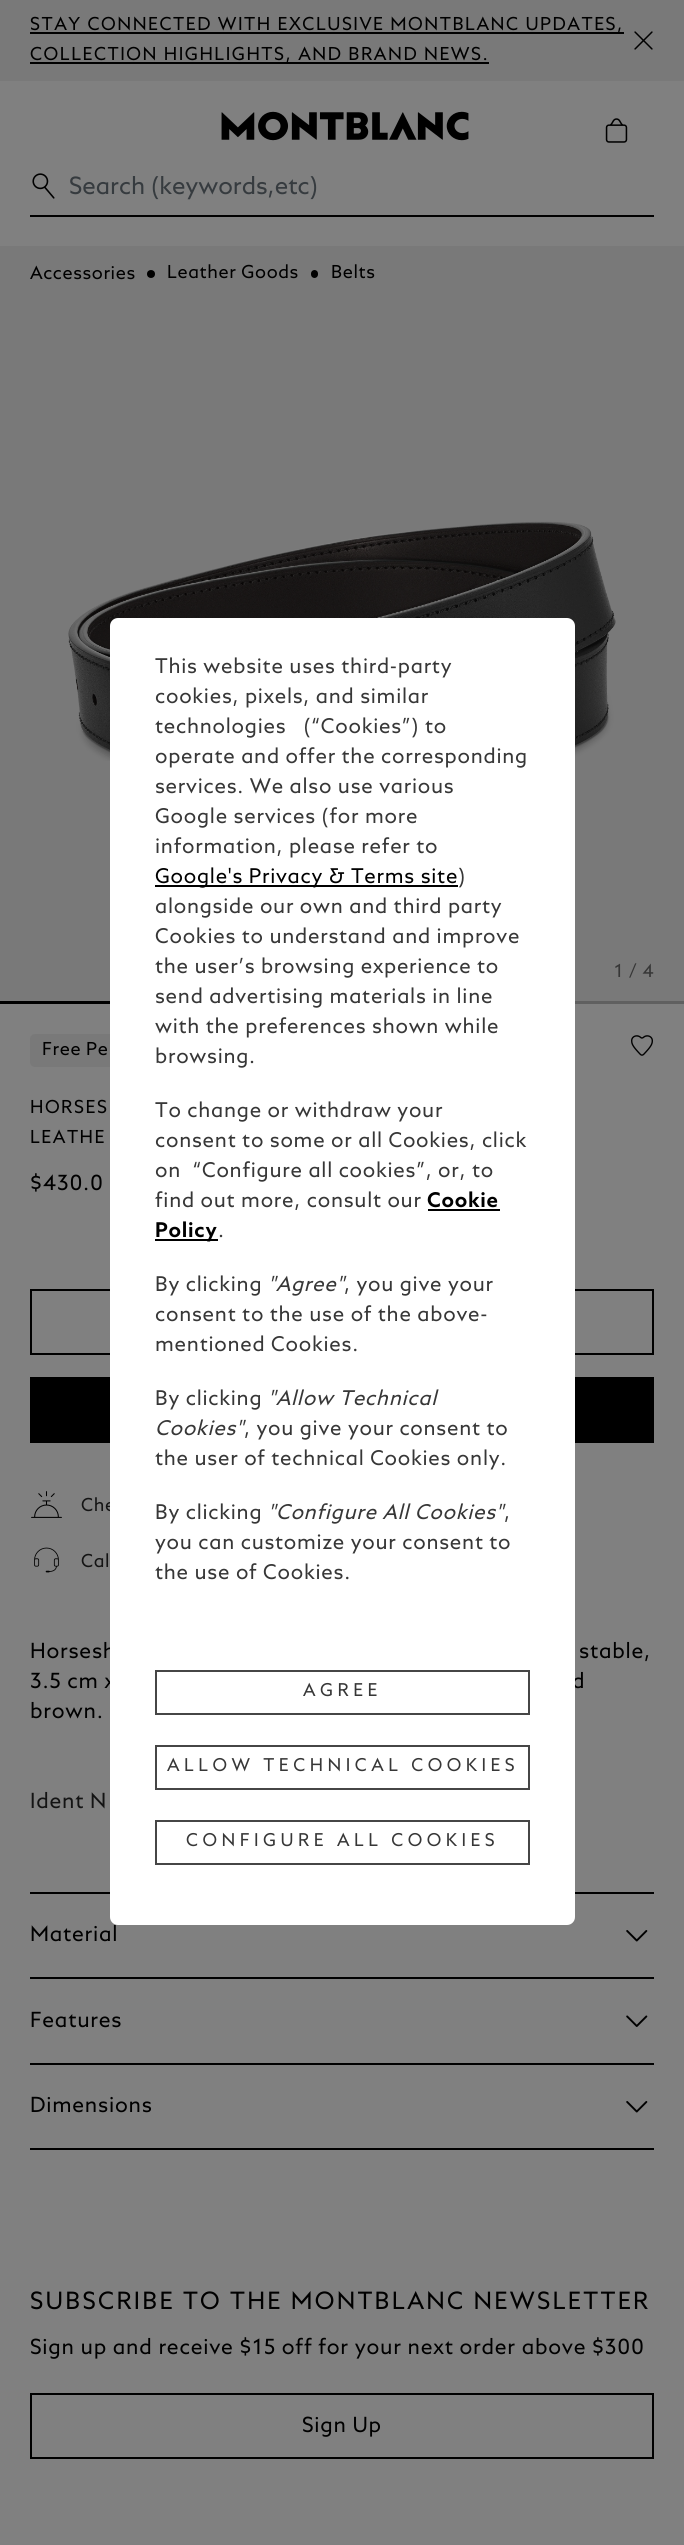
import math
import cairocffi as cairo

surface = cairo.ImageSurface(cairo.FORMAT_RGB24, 684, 2545)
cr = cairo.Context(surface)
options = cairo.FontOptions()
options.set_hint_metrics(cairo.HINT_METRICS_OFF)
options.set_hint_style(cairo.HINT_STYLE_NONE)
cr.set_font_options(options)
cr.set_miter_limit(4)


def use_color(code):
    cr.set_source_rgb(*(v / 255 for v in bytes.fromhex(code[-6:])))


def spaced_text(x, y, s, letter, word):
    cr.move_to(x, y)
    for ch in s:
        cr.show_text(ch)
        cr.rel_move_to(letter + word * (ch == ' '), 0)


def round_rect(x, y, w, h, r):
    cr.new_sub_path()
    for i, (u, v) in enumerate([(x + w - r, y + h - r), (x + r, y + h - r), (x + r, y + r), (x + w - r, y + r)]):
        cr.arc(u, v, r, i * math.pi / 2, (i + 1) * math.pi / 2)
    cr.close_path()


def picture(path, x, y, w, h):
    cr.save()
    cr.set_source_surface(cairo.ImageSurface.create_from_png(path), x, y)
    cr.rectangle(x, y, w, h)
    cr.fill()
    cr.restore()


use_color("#808080")
cr.paint()
use_color("#797979")
cr.rectangle(0, 0, 684, 81)
cr.fill()
use_color("#000000")
cr.rectangle(30, 32, 594, 2)
cr.fill()
cr.select_font_face("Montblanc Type")
cr.set_font_size(18)
spaced_text(30, 30, "STAY CONNECTED WITH EXCLUSIVE MONTBLANC UPDATES,", 1.5, 0)
cr.rectangle(30, 62, 459, 2)
cr.fill()
spaced_text(30, 60, "COLLECTION HIGHLIGHTS, AND BRAND NEWS.", 1.5, 0)
picture("img1.png", 634, 31, 19, 19)
picture("img2.png", 221, 111, 248, 30)
picture("img3.png", 605, 118, 23, 25)
picture("img4.png", 32, 173, 23, 26)
cr.rectangle(30, 215, 624, 2)
cr.fill()
cr.save()
cr.rectangle(69, 176, 459, 24)
cr.clip()
cr.set_font_size(24)
use_color("#363b3f")
cr.move_to(69, 194)
cr.show_text("Search (keywords,etc)")
cr.restore()
use_color("#797979")
cr.rectangle(0, 246, 684, 755)
cr.fill()
use_color("#000000")
spaced_text(30, 279, "Accessories", 0.6, 0)
cr.new_path()
cr.arc(151, 274, 4, 0, 2 * math.pi)
cr.fill()
spaced_text(167, 278, "Leather Goods", 0.6, 0)
round_rect(311, 270, 7, 8, 3.5)
cr.fill()
spaced_text(331, 278, "Belts", 0.6, 0)
picture("img5.png", 68, 521, 548, 240)
use_color("#373737")
spaced_text(614, 977, "1 / 4", 0.6, 0)
use_color("#000000")
cr.rectangle(0, 1001, 110, 3)
cr.fill()
use_color("#606060")
cr.rectangle(575, 1001, 109, 3)
cr.fill()
use_color("#797979")
round_rect(30, 1034, 207, 33, 5)
cr.fill()
use_color("#000000")
spaced_text(42, 1055, "Free Pe", 0.6, 0)
picture("img6.png", 631, 1035, 22, 21)
spaced_text(30, 1113, "HORSES", 1.5, 0)
spaced_text(30, 1143, "LEATHE", 1.5, 0)
cr.set_font_size(21)
spaced_text(30, 1190, "$430.0", 0.75, 0)
cr.rectangle(31, 1290, 622, 64)
cr.stroke()
cr.rectangle(30, 1377, 624, 66)
cr.fill()
picture("img7.png", 31, 1491, 31, 27)
cr.set_font_size(18)
use_color("#141414")
spaced_text(81, 1511, "Che", 0.6, 0)
picture("img8.png", 34, 1547, 25, 26)
spaced_text(81, 1567, "Cal", 0.6, 0)
cr.set_font_size(21)
use_color("#000000")
spaced_text(30, 1658, "Horsesh", 0.75, 0)
spaced_text(579, 1658, "stable,", 0.75, 0)
spaced_text(30, 1688, "3.5 cm x", 0.75, 0)
spaced_text(572, 1688, "d", 0.75, 0)
spaced_text(30, 1718, "brown.", 0.75, 0)
use_color("#141414")
spaced_text(30, 1808, "Ident N", 0.75, 0)
use_color("#000000")
cr.rectangle(30, 1892, 624, 2)
cr.fill()
spaced_text(30, 1941, "Material", 0.75, 0)
picture("img9.png", 626, 1930, 22, 12)
cr.rectangle(30, 1977, 624, 2)
cr.fill()
spaced_text(30, 2027, "Features", 0.75, 0)
picture("img10.png", 626, 2015, 22, 12)
cr.rectangle(30, 2063, 624, 2)
cr.fill()
cr.rectangle(30, 2148, 624, 2)
cr.fill()
spaced_text(30, 2112, "Dimensions", 0.75, 0)
picture("img9.png", 626, 2101, 22, 12)
cr.set_font_size(24)
spaced_text(30, 2309, "SUBSCRIBE TO THE MONTBLANC NEWSLETTER", 2.25, 0)
cr.set_font_size(21)
spaced_text(30, 2354, "Sign up and receive $15 off for your next order above $300", 0.75, 0)
cr.rectangle(31, 2394, 622, 64)
cr.stroke()
spaced_text(302, 2432, "Sign Up", 0.75, 0)
use_color("#ffffff")
round_rect(110, 618, 465, 1307, 8)
cr.fill()
cr.set_font_size(20.4)
use_color("#373737")
spaced_text(155, 673, "This website uses third-party", 0.75, 0)
spaced_text(155, 703, "cookies, pixels, and similar", 0.75, 0)
spaced_text(155, 733, "technologies   (“Cookies”) to", 0.75, 0)
spaced_text(155, 763, "operate and offer the corresponding", 0.75, 0)
spaced_text(155, 793, "services. We also use various", 0.75, 0)
spaced_text(155, 823, "Google services (for more", 0.75, 0)
spaced_text(155, 853, "information, please refer to", 0.75, 0)
use_color("#000000")
cr.rectangle(155, 885, 303, 2)
cr.fill()
spaced_text(155, 883, "Google's Privacy & Terms site", 0.75, 0)
use_color("#373737")
spaced_text(458, 883, ")", 0.75, 0)
spaced_text(155, 913, "alongside our own and third party", 0.75, 0)
spaced_text(155, 943, "Cookies to understand and improve", 0.75, 0)
spaced_text(155, 973, "the user’s browsing experience to", 0.75, 0)
spaced_text(155, 1003, "send advertising materials in line", 0.75, 0)
spaced_text(155, 1033, "with the preferences shown while", 0.75, 0)
spaced_text(155, 1063, "browsing.", 0.75, 0)
spaced_text(155, 1117, "To change or withdraw your", 0.75, 0)
spaced_text(155, 1147, "consent to some or all Cookies, click", 0.75, 0)
spaced_text(155, 1177, "on  “Configure all cookies”, or, to", 0.75, 0)
spaced_text(155, 1207, "find out more, consult our", 0.75, 0)
cr.select_font_face("Montblanc Type", cairo.FONT_SLANT_NORMAL, cairo.FONT_WEIGHT_BOLD)
use_color("#000000")
spaced_text(427, 1207, "Cookie", 0.75, 0)
cr.rectangle(428, 1209, 72, 2)
cr.fill()
cr.rectangle(155, 1239, 63, 2)
cr.fill()
spaced_text(155, 1237, "Policy", 0.75, 0)
cr.select_font_face("Montblanc Type")
use_color("#373737")
spaced_text(218, 1237, ".", 0.75, 0)
spaced_text(155, 1291, "By clicking", 0.75, 0)
cr.select_font_face("Montblanc Type", cairo.FONT_SLANT_ITALIC)
spaced_text(268, 1291, "\"Agree\"", 0.75, 0)
cr.select_font_face("Montblanc Type")
spaced_text(344, 1291, ", you give your", 0.75, 0)
spaced_text(155, 1321, "consent to the use of the above-", 0.75, 0)
spaced_text(155, 1351, "mentioned Cookies.", 0.75, 0)
spaced_text(155, 1405, "By clicking", 0.75, 0)
cr.select_font_face("Montblanc Type", cairo.FONT_SLANT_ITALIC)
spaced_text(268, 1405, "\"Allow Technical", 0.75, 0)
spaced_text(155, 1435, "Cookies\"", 0.75, 0)
cr.select_font_face("Montblanc Type")
spaced_text(244, 1435, ", you give your consent to", 0.75, 0)
spaced_text(155, 1465, "the user of technical Cookies only.", 0.75, 0)
spaced_text(155, 1519, "By clicking", 0.75, 0)
cr.select_font_face("Montblanc Type", cairo.FONT_SLANT_ITALIC)
spaced_text(268, 1519, "\"Configure All Cookies\"", 0.75, 0)
cr.select_font_face("Montblanc Type")
spaced_text(504, 1519, ",", 0.75, 0)
spaced_text(155, 1549, "you can customize your consent to", 0.75, 0)
spaced_text(155, 1579, "the use of Cookies.", 0.75, 0)
cr.rectangle(156, 1671, 373, 43)
use_color("#464646")
cr.stroke()
cr.set_font_size(17.8)
use_color("#373737")
spaced_text(303, 1696, "AGREE", 4.5, 0)
cr.rectangle(156, 1746, 373, 43)
use_color("#464646")
cr.stroke()
use_color("#373737")
spaced_text(167, 1771, "ALLOW TECHNICAL COOKIES", 4.5, 0)
cr.rectangle(156, 1821, 373, 43)
use_color("#464646")
cr.stroke()
use_color("#373737")
spaced_text(186, 1846, "CONFIGURE ALL COOKIES", 4.5, 0)
surface.write_to_png("result.png")
